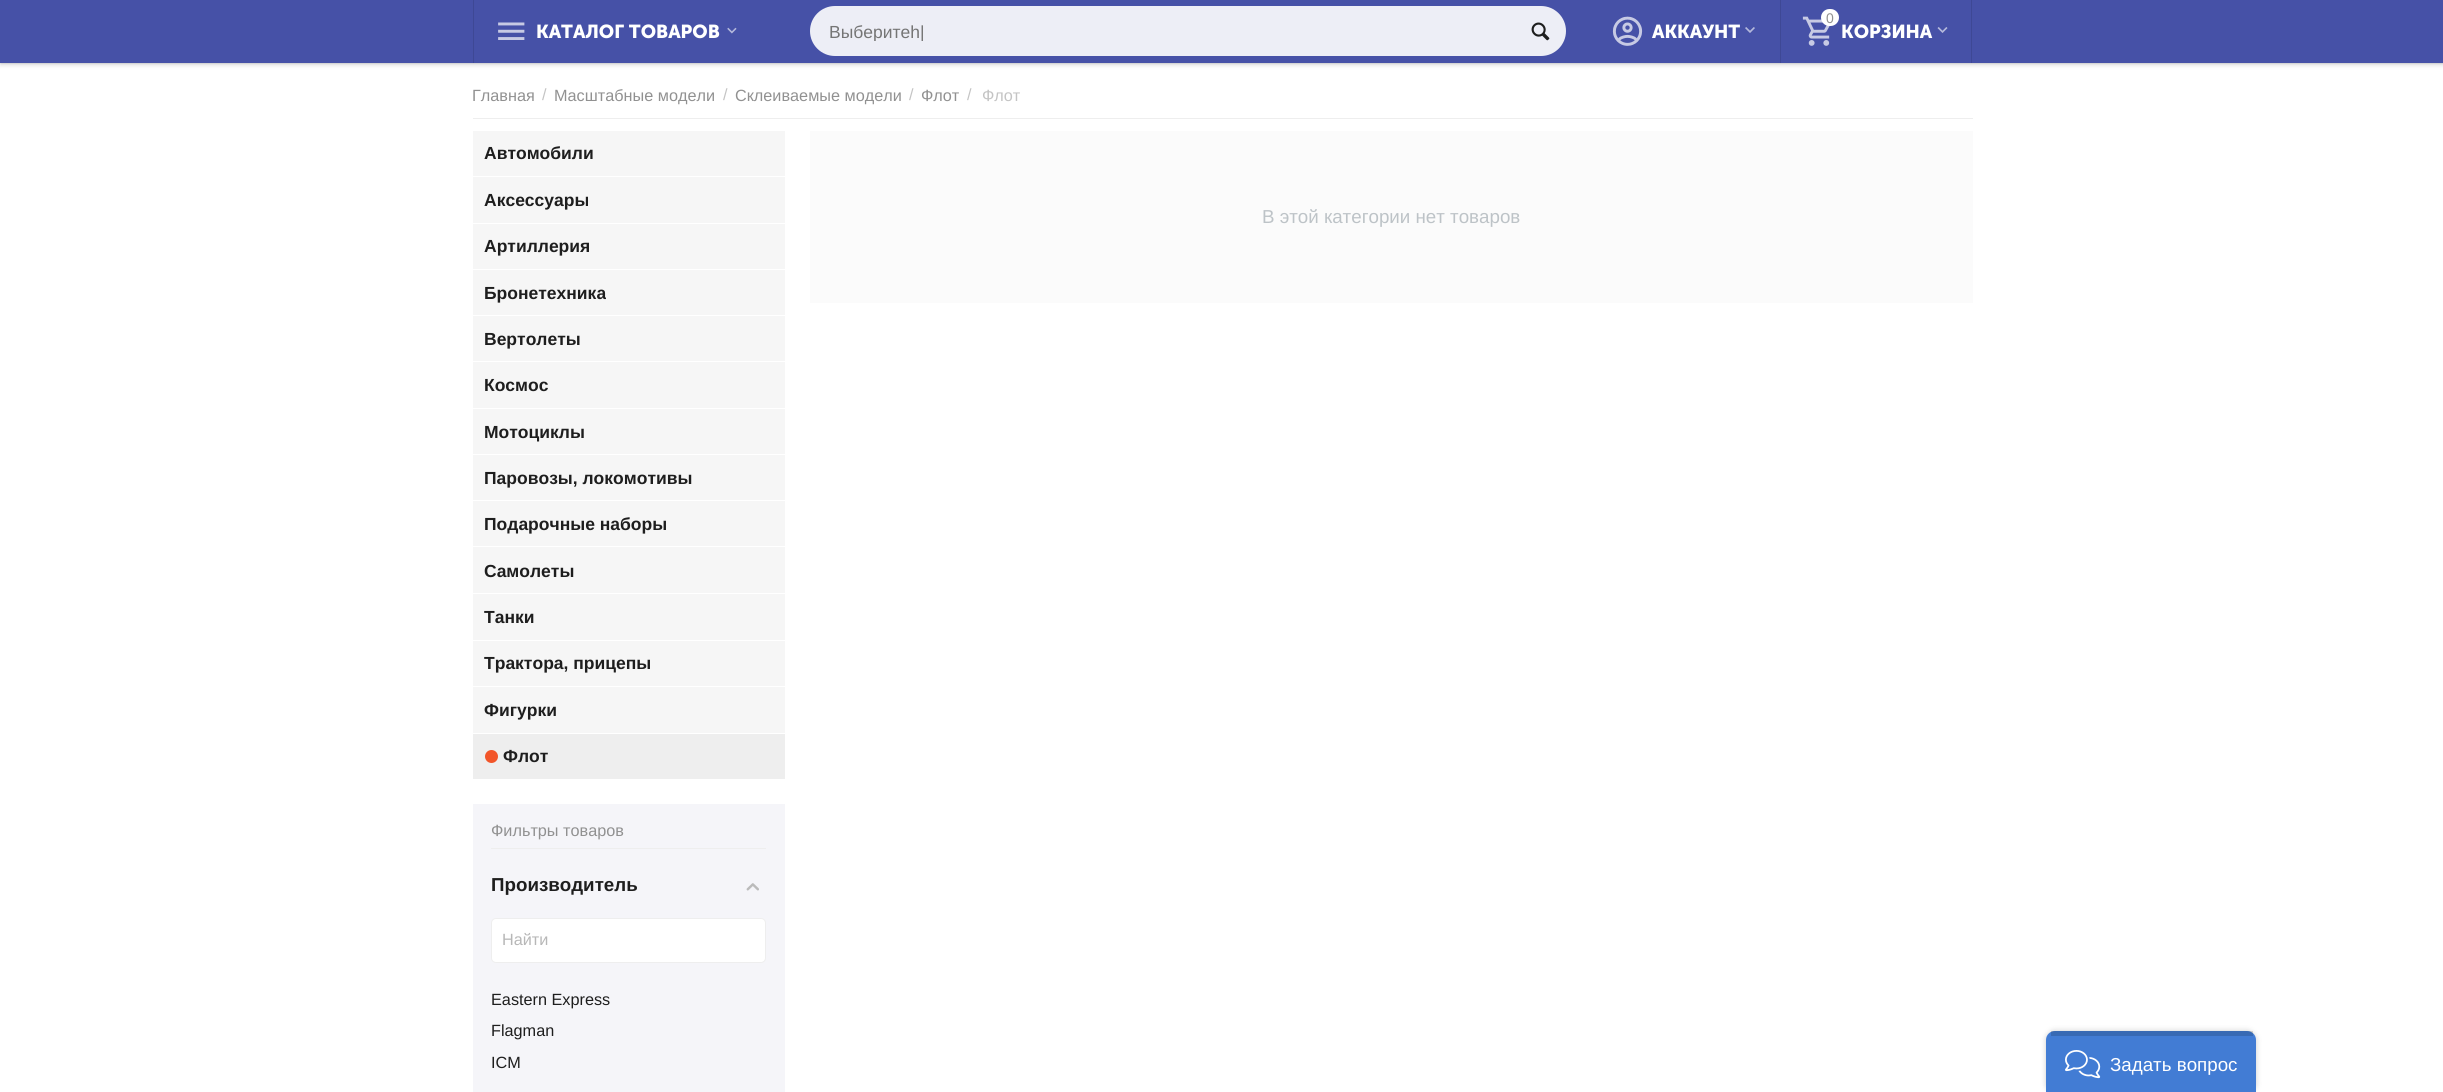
import math
import cairocffi as cairo

surface = cairo.ImageSurface(cairo.FORMAT_RGB24, 2443, 1092)
cr = cairo.Context(surface)
options = cairo.FontOptions()
options.set_hint_metrics(cairo.HINT_METRICS_OFF)
options.set_hint_style(cairo.HINT_STYLE_NONE)
cr.set_font_options(options)
cr.set_miter_limit(4)


def use_color(code):
    cr.set_source_rgb(*(v / 255 for v in bytes.fromhex(code[-6:])))


def round_rect(x, y, w, h, r):
    cr.new_sub_path()
    for i, (u, v) in enumerate([(x + w - r, y + h - r), (x + r, y + h - r), (x + r, y + r), (x + w - r, y + r)]):
        cr.arc(u, v, r, i * math.pi / 2, (i + 1) * math.pi / 2)
    cr.close_path()


def shadow(x, y, w, h, r, blur, alpha):
    cr.push_group_with_content(cairo.CONTENT_ALPHA)
    cr.set_operator(cairo.OPERATOR_SOURCE)
    for i in range(15, -16, -2):
        e = blur * i / 6
        if min(w, h) + 2 * e > 0:
            cr.set_source_rgba(0, 0, 0, alpha * math.erfc((i - 1) / 8.5) / 2)
            round_rect(x - e, y - e, w + 2 * e, h + 2 * e, max(0, min(r + e + blur * .6, min(w, h) / 2 + e)))
            cr.fill()
    cr.mask(cr.pop_group())


def picture(path, x, y, w, h):
    cr.save()
    cr.set_source_surface(cairo.ImageSurface.create_from_png(path), x, y)
    cr.rectangle(x, y, w, h)
    cr.fill()
    cr.restore()


use_color("#ffffff")
cr.paint()
use_color("#000000")
shadow(0, 4, 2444, 62, 0, 2, 0.1)
shadow(0, 1, 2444, 63, 0, 0.5, 0.1)
use_color("#4651a7")
cr.rectangle(0, 0, 2443, 63)
cr.fill()
use_color("#3e4895")
cr.rectangle(473, 0, 1, 63)
cr.fill()
picture("img1.png", 498, 22, 27, 18)
cr.select_font_face("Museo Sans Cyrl", cairo.FONT_SLANT_NORMAL, cairo.FONT_WEIGHT_BOLD)
cr.set_font_size(18.75)
use_color("#ffffff")
cr.move_to(536, 38)
cr.show_text("КАТАЛОГ ТОВАРОВ")
picture("img2.png", 727, 27, 10, 7)
use_color("#edeef6")
round_rect(810, 6, 756, 50, 25)
cr.fill()
cr.save()
cr.rectangle(830, 21, 685, 20)
cr.clip()
cr.select_font_face("Liberation Sans")
cr.set_font_size(17.5)
use_color("#757575")
cr.move_to(829, 38)
cr.show_text("Выберитеh|")
cr.restore()
picture("img3.png", 1531, 22, 19, 19)
use_color("#3e4895")
cr.rectangle(1780, 0, 1, 63)
cr.fill()
picture("img4.png", 1612, 16, 31, 30)
use_color("#ffffff")
cr.move_to(1652, 38)
cr.show_text("АККАУНТ")
picture("img5.png", 1745, 27, 10, 6)
use_color("#3e4895")
cr.rectangle(1971, 0, 1, 63)
cr.fill()
picture("img6.png", 1802, 16, 28, 30)
use_color("#ffffff")
round_rect(1821, 9, 18, 17, 8.5)
cr.fill()
cr.select_font_face("Liberation Sans")
cr.set_font_size(14)
use_color("#919191")
cr.move_to(1826, 23)
cr.show_text("0")
cr.select_font_face("Museo Sans Cyrl", cairo.FONT_SLANT_NORMAL, cairo.FONT_WEIGHT_BOLD)
cr.set_font_size(18.75)
use_color("#ffffff")
cr.move_to(1841, 38)
cr.show_text("КОРЗИНА")
picture("img7.png", 1937, 27, 11, 6)
use_color("#eeeeee")
cr.rectangle(473, 118, 1500, 1)
cr.fill()
cr.select_font_face("Liberation Sans")
cr.set_font_size(16.25)
use_color("#919191")
cr.move_to(472, 101)
cr.show_text("Главная")
use_color("#c4c4c4")
cr.move_to(542, 100)
cr.show_text("/")
use_color("#919191")
cr.move_to(554, 101)
cr.show_text("Масштабные модели")
use_color("#c4c4c4")
cr.move_to(723, 100)
cr.show_text("/")
use_color("#919191")
cr.move_to(735, 101)
cr.show_text("Склеиваемые модели")
use_color("#c4c4c4")
cr.move_to(909, 100)
cr.show_text("/")
use_color("#919191")
cr.move_to(921, 101)
cr.show_text("Флот")
use_color("#c4c4c4")
cr.move_to(967, 100)
cr.show_text("/")
cr.move_to(982, 101)
cr.show_text("Флот")
use_color("#f6f6f6")
cr.rectangle(473, 131, 312, 602)
cr.fill()
use_color("#ffffff")
cr.rectangle(473, 176, 312, 1)
cr.fill()
cr.select_font_face("Liberation Sans", cairo.FONT_SLANT_NORMAL, cairo.FONT_WEIGHT_BOLD)
cr.set_font_size(17.5)
use_color("#1e1e1e")
cr.move_to(484, 159)
cr.show_text("Автомобили")
use_color("#ffffff")
cr.rectangle(473, 223, 312, 1)
cr.fill()
use_color("#1e1e1e")
cr.move_to(484, 206)
cr.show_text("Аксессуары")
use_color("#ffffff")
cr.rectangle(473, 269, 312, 1)
cr.fill()
use_color("#1e1e1e")
cr.move_to(484, 252)
cr.show_text("Артиллерия")
use_color("#ffffff")
cr.rectangle(473, 315, 312, 1)
cr.fill()
use_color("#1e1e1e")
cr.move_to(484, 299)
cr.show_text("Бронетехника")
use_color("#ffffff")
cr.rectangle(473, 361, 312, 1)
cr.fill()
use_color("#1e1e1e")
cr.move_to(484, 345)
cr.show_text("Вертолеты")
use_color("#ffffff")
cr.rectangle(473, 408, 312, 1)
cr.fill()
use_color("#1e1e1e")
cr.move_to(484, 391)
cr.show_text("Космос")
use_color("#ffffff")
cr.rectangle(473, 454, 312, 1)
cr.fill()
use_color("#1e1e1e")
cr.move_to(484, 438)
cr.show_text("Мотоциклы")
use_color("#ffffff")
cr.rectangle(473, 500, 312, 1)
cr.fill()
use_color("#1e1e1e")
cr.move_to(484, 484)
cr.show_text("Паровозы, локомотивы")
use_color("#ffffff")
cr.rectangle(473, 546, 312, 1)
cr.fill()
use_color("#1e1e1e")
cr.move_to(484, 530)
cr.show_text("Подарочные наборы")
use_color("#ffffff")
cr.rectangle(473, 593, 312, 1)
cr.fill()
use_color("#1e1e1e")
cr.move_to(484, 577)
cr.show_text("Самолеты")
use_color("#ffffff")
cr.rectangle(473, 640, 312, 1)
cr.fill()
use_color("#1e1e1e")
cr.move_to(484, 623)
cr.show_text("Танки")
use_color("#ffffff")
cr.rectangle(473, 686, 312, 1)
cr.fill()
use_color("#1e1e1e")
cr.move_to(484, 669)
cr.show_text("Трактора, прицепы")
cr.move_to(484, 716)
cr.show_text("Фигурки")
use_color("#eeeeee")
cr.rectangle(473, 734, 312, 45)
cr.fill()
use_color("#f25529")
cr.arc(491.5, 756.5, 6.5, 0, 2 * math.pi)
cr.fill()
use_color("#1e1e1e")
cr.move_to(503, 762)
cr.show_text("Флот")
use_color("#f5f5f9")
cr.rectangle(473, 804, 312, 288)
cr.fill()
use_color("#eeeeee")
cr.rectangle(491, 848, 275, 1)
cr.fill()
cr.select_font_face("Liberation Sans")
cr.set_font_size(16.25)
use_color("#919191")
cr.move_to(491, 836)
cr.show_text("Фильтры товаров")
cr.select_font_face("Liberation Sans", cairo.FONT_SLANT_NORMAL, cairo.FONT_WEIGHT_BOLD)
cr.set_font_size(18.75)
use_color("#1e1e1e")
cr.move_to(491, 891)
cr.show_text("Производитель")
picture("img8.png", 746, 883, 13, 8)
use_color("#ffffff")
round_rect(491.5, 918.5, 274, 44, 4.5)
cr.fill_preserve()
use_color("#eeeeee")
cr.set_line_width(1)
cr.stroke()
cr.select_font_face("Liberation Sans")
cr.set_font_size(16.25)
use_color("#b7b7b7")
cr.move_to(502, 945)
cr.show_text("Найти")
use_color("#1e1e1e")
cr.move_to(491, 1005)
cr.show_text("Eastern Express")
cr.move_to(491, 1036)
cr.show_text("Flagman")
cr.move_to(491, 1068)
cr.show_text("ICM")
use_color("#fbfbfb")
cr.rectangle(810, 131, 1163, 172)
cr.fill()
cr.set_font_size(18.75)
use_color("#bdc3c7")
cr.move_to(1262, 223)
cr.show_text("В этой категории нет товаров")
use_color("#000000")
shadow(2046, 1031, 210, 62, 9, 3, 0.2)
use_color("#427cd4")
cr.new_path()
cr.move_to(2055, 1031)
cr.line_to(2247, 1031)
cr.curve_to(2252, 1031, 2256, 1035, 2256, 1040)
cr.line_to(2256, 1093)
cr.line_to(2046, 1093)
cr.line_to(2046, 1040)
cr.curve_to(2046, 1035, 2050, 1031, 2055, 1031)
cr.close_path()
cr.fill()
cr.set_source_rgba(0, 0, 0, 0.15)
cr.rectangle(2051, 1031, 202, 5)
cr.fill()
picture("img9.png", 2065, 1050, 36, 29)
use_color("#ffffff")
cr.move_to(2110, 1071)
cr.show_text("Задать вопрос")
surface.write_to_png("result.png")
